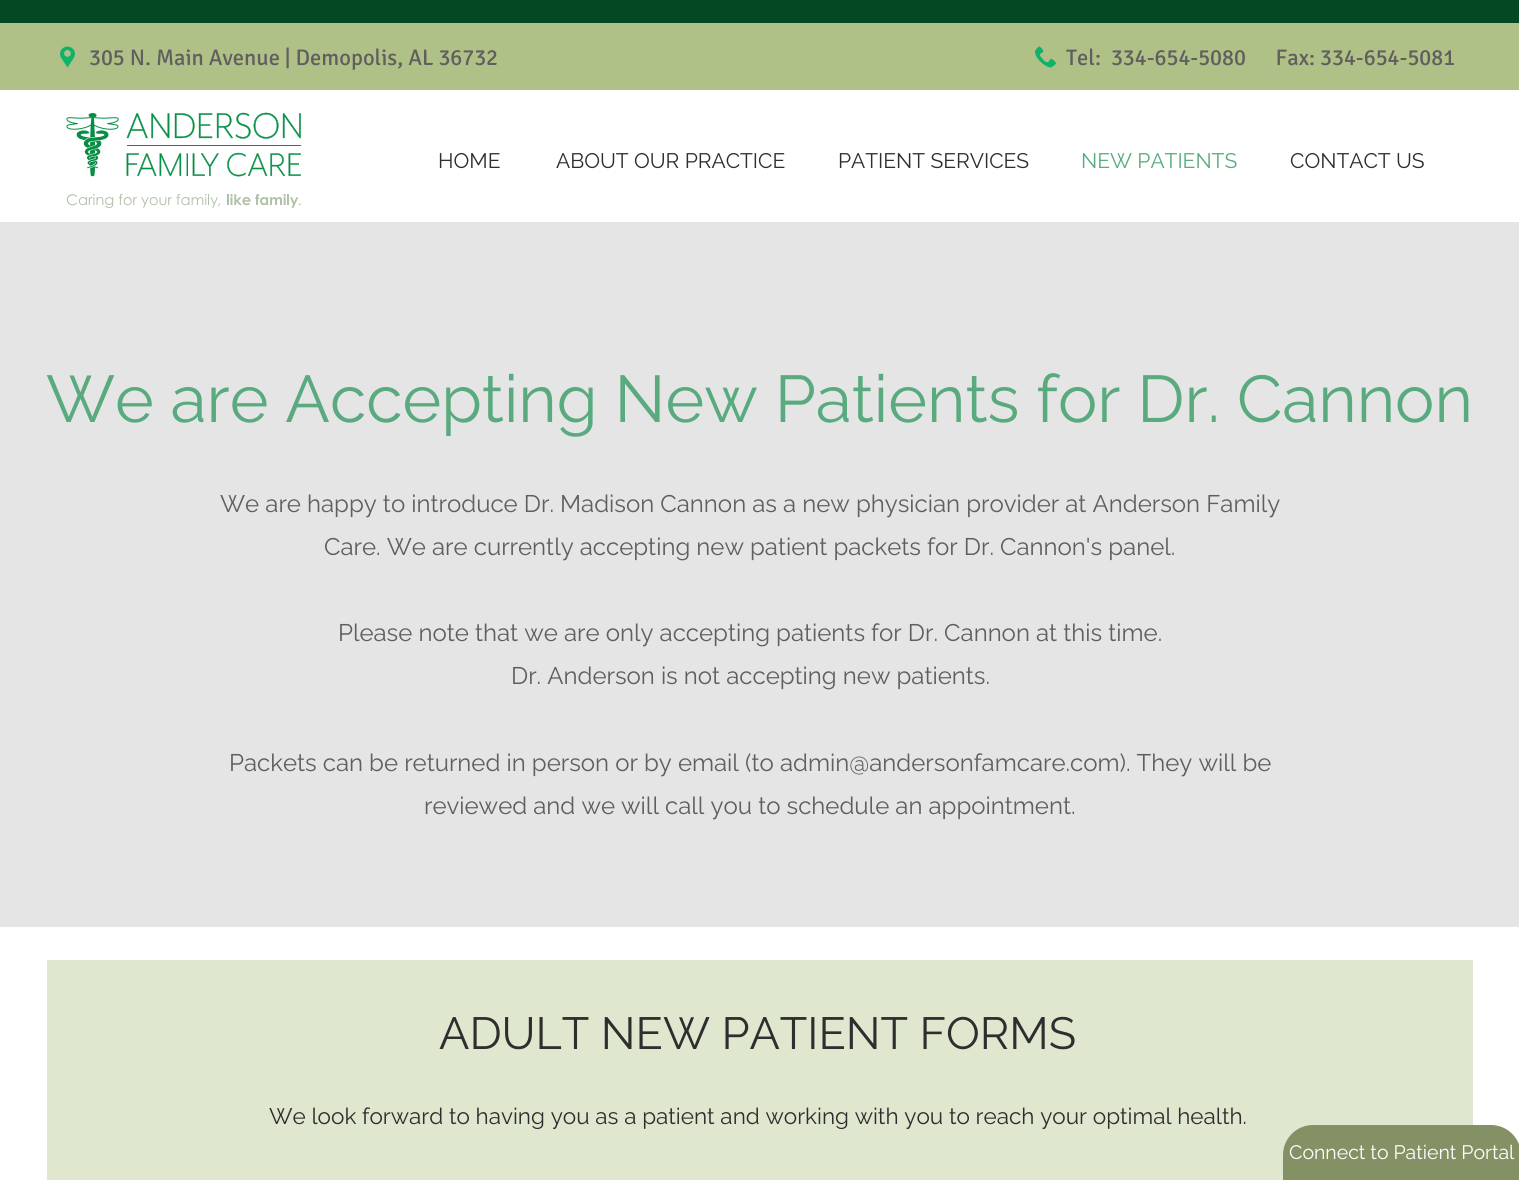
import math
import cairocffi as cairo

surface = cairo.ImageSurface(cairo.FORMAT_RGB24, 1519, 1180)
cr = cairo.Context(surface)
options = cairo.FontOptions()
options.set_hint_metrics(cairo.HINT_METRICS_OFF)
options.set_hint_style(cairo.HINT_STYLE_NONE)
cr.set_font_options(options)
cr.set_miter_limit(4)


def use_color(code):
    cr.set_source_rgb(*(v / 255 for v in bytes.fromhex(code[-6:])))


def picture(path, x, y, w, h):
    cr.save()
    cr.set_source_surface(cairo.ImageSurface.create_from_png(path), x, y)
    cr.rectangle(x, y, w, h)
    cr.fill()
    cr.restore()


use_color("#ffffff")
cr.paint()
use_color("#044723")
cr.rectangle(0, 0, 1519, 23)
cr.fill()
use_color("#b0c187")
cr.rectangle(0, 23, 1519, 67)
cr.fill()
picture("img1.png", 60, 46, 15, 22)
cr.select_font_face("Signika")
cr.set_font_size(22.5)
use_color("#605e5e")
cr.move_to(89, 65)
cr.show_text("305 N. Main Avenue | Demopolis, AL 36732")
picture("img2.png", 1035, 46, 21, 22)
cr.move_to(1066, 65)
cr.show_text("Tel:  334-654-5080      Fax: 334-654-5081")
picture("img3.png", 66, 112, 235, 96)
cr.select_font_face("Raleway")
cr.set_font_size(21)
use_color("#2f2e2e")
cr.move_to(438, 168)
cr.show_text("HOME")
cr.move_to(556, 168)
cr.show_text("ABOUT OUR PRACTICE")
cr.move_to(838, 168)
cr.show_text("PATIENT SERVICES")
use_color("#59aa7e")
cr.move_to(1081, 168)
cr.show_text("NEW PATIENTS")
use_color("#2f2e2e")
cr.move_to(1290, 168)
cr.show_text("CONTACT US")
use_color("#e5e5e5")
cr.rectangle(0, 222, 1519, 705)
cr.fill()
cr.set_font_size(66)
use_color("#59aa7e")
cr.move_to(46, 422)
cr.show_text("We are Accepting New Patients for Dr. Cannon")
cr.set_font_size(24)
use_color("#605e5e")
cr.move_to(220, 512)
cr.show_text("We are happy to introduce Dr. Madison Cannon as a new physician provider at Anderson Family")
cr.move_to(324, 555)
cr.show_text("Care. We are currently accepting new patient packets for Dr. Cannon's panel.")
cr.move_to(338, 641)
cr.show_text("Please note that we are only accepting patients for Dr. Cannon at this time.")
cr.move_to(511, 684)
cr.show_text("Dr. Anderson is not accepting new patients.")
cr.move_to(229, 771)
cr.show_text("Packets can be returned in person or by email (to admin@andersonfamcare.com). They will be")
cr.move_to(424, 814)
cr.show_text("reviewed and we will call you to schedule an appointment.")
use_color("#e0e7cf")
cr.rectangle(47, 960, 1426, 220)
cr.fill()
cr.set_font_size(45)
use_color("#2f2e2e")
cr.move_to(439, 1049)
cr.show_text("ADULT NEW PATIENT FORMS")
cr.set_font_size(22.5)
cr.move_to(269, 1124)
cr.show_text("We look forward to having you as a patient and working with you to reach your optimal health.")
use_color("#849165")
cr.new_path()
cr.move_to(1313, 1125)
cr.line_to(1491, 1125)
cr.curve_to(1507.5, 1125, 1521, 1138.5, 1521, 1155)
cr.line_to(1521, 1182)
cr.line_to(1283, 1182)
cr.line_to(1283, 1155)
cr.curve_to(1283, 1138.5, 1296.5, 1125, 1313, 1125)
cr.close_path()
cr.fill()
cr.set_font_size(19.5)
use_color("#ffffff")
cr.move_to(1289, 1159)
cr.show_text("Connect to Patient Portal")
surface.write_to_png("result.png")
